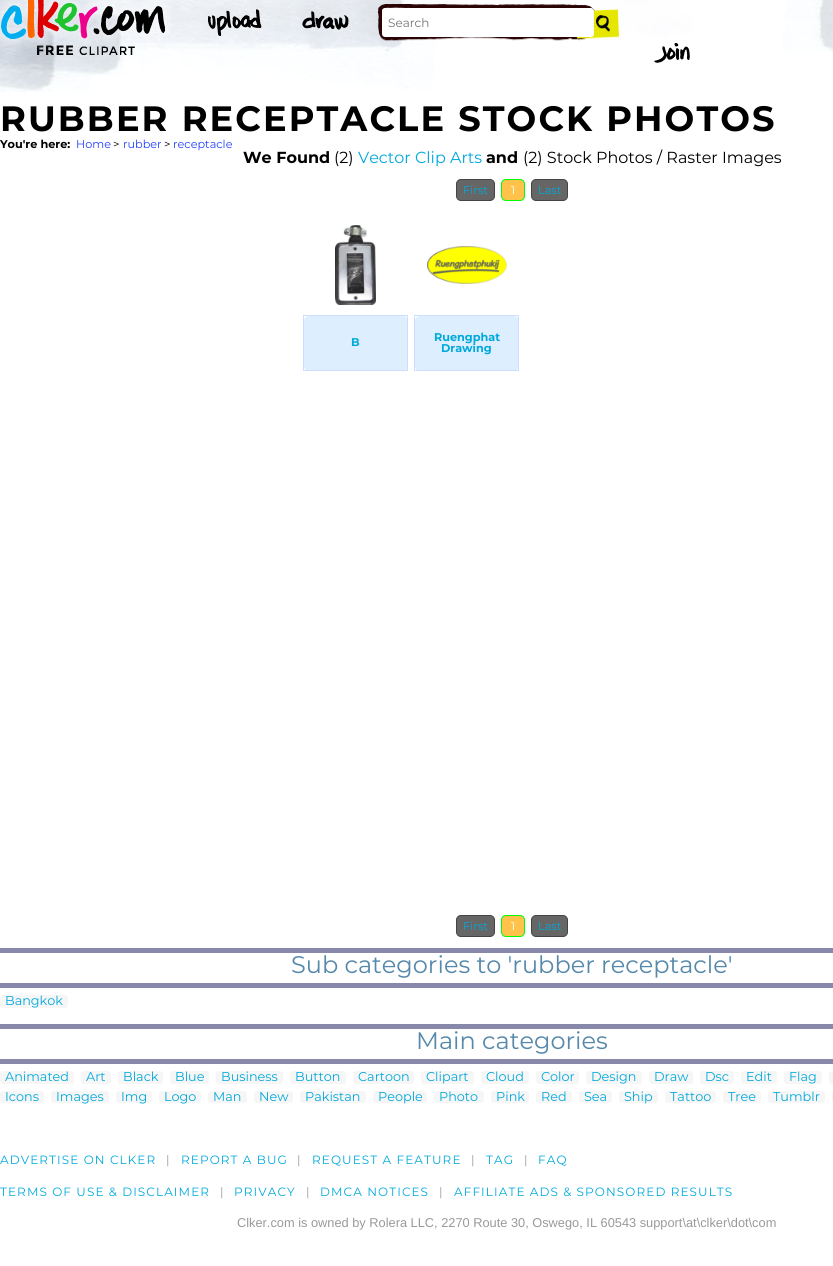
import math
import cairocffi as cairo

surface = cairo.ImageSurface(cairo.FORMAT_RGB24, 833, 1266)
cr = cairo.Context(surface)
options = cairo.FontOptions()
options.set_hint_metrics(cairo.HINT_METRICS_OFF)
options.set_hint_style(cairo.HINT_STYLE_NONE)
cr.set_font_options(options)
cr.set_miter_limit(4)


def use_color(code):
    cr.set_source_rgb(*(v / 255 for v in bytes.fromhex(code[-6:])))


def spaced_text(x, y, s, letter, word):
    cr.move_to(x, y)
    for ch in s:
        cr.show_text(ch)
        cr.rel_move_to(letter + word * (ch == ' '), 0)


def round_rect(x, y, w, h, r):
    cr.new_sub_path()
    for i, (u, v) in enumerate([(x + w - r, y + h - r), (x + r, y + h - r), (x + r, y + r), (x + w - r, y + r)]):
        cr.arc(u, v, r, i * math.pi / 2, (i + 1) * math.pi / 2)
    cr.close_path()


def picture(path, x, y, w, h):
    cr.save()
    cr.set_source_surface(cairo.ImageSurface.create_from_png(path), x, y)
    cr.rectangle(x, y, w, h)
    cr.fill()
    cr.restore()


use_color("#ffffff")
cr.paint()
picture("img1.png", 0, 0, 833, 92)
picture("img2.png", 0, 0, 171, 55)
picture("img3.png", 208, 9, 54, 27)
picture("img4.png", 302, 11, 47, 19)
picture("img5.png", 378, 4, 241, 37)
use_color("#ffffff")
round_rect(382, 8, 212, 29, 3)
cr.fill()
cr.select_font_face("Montserrat")
cr.set_font_size(12)
use_color("#757575")
cr.move_to(388, 27)
cr.show_text("Search")
picture("img6.png", 654, 43, 36, 20)
cr.select_font_face("Montserrat", cairo.FONT_SLANT_NORMAL, cairo.FONT_WEIGHT_BOLD)
cr.set_font_size(35.2)
use_color("#000000")
spaced_text(0, 131, "RUBBER RECEPTACLE STOCK PHOTOS", 2.1, 0)
cr.set_font_size(11.25)
cr.move_to(0, 148)
cr.show_text("You're here:")
cr.select_font_face("Montserrat")
use_color("#2040ff")
cr.move_to(76, 148)
cr.show_text("Home")
use_color("#000000")
cr.move_to(113, 148)
cr.show_text(">")
use_color("#2040ff")
cr.move_to(123, 148)
cr.show_text("rubber")
use_color("#000000")
cr.move_to(164, 148)
cr.show_text(">")
use_color("#2040ff")
cr.move_to(173, 148)
cr.show_text("receptacle")
cr.select_font_face("Montserrat", cairo.FONT_SLANT_NORMAL, cairo.FONT_WEIGHT_BOLD)
cr.set_font_size(16)
use_color("#000000")
cr.move_to(243, 163)
cr.show_text("We Found")
cr.select_font_face("Montserrat")
cr.move_to(334, 163)
cr.show_text("(2)")
use_color("#00a9db")
cr.move_to(358, 163)
cr.show_text("Vector Clip Arts")
cr.select_font_face("Montserrat", cairo.FONT_SLANT_NORMAL, cairo.FONT_WEIGHT_BOLD)
use_color("#000000")
cr.move_to(486, 163)
cr.show_text("and")
cr.select_font_face("Montserrat")
cr.move_to(523, 163)
cr.show_text("(2) Stock Photos / Raster Images")
use_color("#666666")
round_rect(456.5, 179.5, 38, 21, 4.5)
cr.fill_preserve()
use_color("#444444")
cr.set_line_width(1)
cr.stroke()
cr.set_font_size(11.25)
use_color("#00a9db")
cr.move_to(463, 194)
cr.show_text("First")
use_color("#ffc34c")
round_rect(501.5, 179.5, 23, 21, 4.5)
cr.fill_preserve()
use_color("#00ff00")
cr.stroke()
use_color("#ffffff")
cr.move_to(511, 194)
cr.show_text("1")
use_color("#666666")
round_rect(531.5, 179.5, 36, 21, 4.5)
cr.fill_preserve()
use_color("#444444")
cr.stroke()
use_color("#00a9db")
cr.move_to(538, 194)
cr.show_text("Last")
picture("img7.png", 335, 225, 41, 80)
use_color("#ddeeff")
round_rect(304, 316, 104, 55, 5)
cr.fill()
use_color("#ccddff")
cr.rectangle(303, 315, 105, 1)
cr.fill()
cr.rectangle(407, 315, 1, 56)
cr.fill()
cr.rectangle(303, 370, 105, 1)
cr.fill()
cr.rectangle(303, 315, 1, 56)
cr.fill()
cr.select_font_face("Montserrat", cairo.FONT_SLANT_NORMAL, cairo.FONT_WEIGHT_BOLD)
use_color("#00a9db")
cr.move_to(351, 346)
cr.show_text("B")
picture("img8.png", 427, 246, 80, 38)
use_color("#ddeeff")
round_rect(415, 316, 104, 55, 5)
cr.fill()
use_color("#ccddff")
cr.rectangle(414, 315, 105, 1)
cr.fill()
cr.rectangle(518, 315, 1, 56)
cr.fill()
cr.rectangle(414, 370, 105, 1)
cr.fill()
cr.rectangle(414, 315, 1, 56)
cr.fill()
use_color("#00a9db")
cr.move_to(434, 341)
cr.show_text("Ruengphat")
cr.move_to(441, 352)
cr.show_text("Drawing")
use_color("#666666")
round_rect(456.5, 915.5, 38, 21, 4.5)
cr.fill_preserve()
use_color("#444444")
cr.stroke()
cr.select_font_face("Montserrat")
use_color("#00a9db")
cr.move_to(463, 930)
cr.show_text("First")
use_color("#ffc34c")
round_rect(501.5, 915.5, 23, 21, 4.5)
cr.fill_preserve()
use_color("#00ff00")
cr.stroke()
use_color("#ffffff")
cr.move_to(511, 930)
cr.show_text("1")
use_color("#666666")
round_rect(531.5, 915.5, 36, 21, 4.5)
cr.fill_preserve()
use_color("#444444")
cr.stroke()
use_color("#00a9db")
cr.move_to(538, 930)
cr.show_text("Last")
use_color("#8888aa")
cr.rectangle(0, 948, 833, 5)
cr.fill()
cr.rectangle(0, 983, 833, 5)
cr.fill()
cr.set_font_size(24)
use_color("#5588aa")
cr.move_to(291, 973)
cr.show_text("Sub categories to 'rubber receptacle'")
use_color("#f6f6f6")
round_rect(0, 995, 68, 13, 3)
cr.fill()
cr.set_font_size(12.8)
use_color("#00a9db")
cr.move_to(5, 1005)
cr.show_text("Bangkok")
use_color("#8888aa")
cr.rectangle(0, 1024, 833, 5)
cr.fill()
cr.rectangle(0, 1059, 833, 5)
cr.fill()
cr.set_font_size(24)
use_color("#5588aa")
cr.move_to(416, 1049)
cr.show_text("Main categories")
use_color("#f6f6f6")
round_rect(0, 1071, 74, 13, 3)
cr.fill()
cr.set_font_size(12.8)
use_color("#00a9db")
cr.move_to(5, 1081)
cr.show_text("Animated")
use_color("#f6f6f6")
round_rect(81, 1071, 30, 13, 3)
cr.fill()
use_color("#00a9db")
cr.move_to(86, 1081)
cr.show_text("Art")
use_color("#f6f6f6")
round_rect(118, 1071, 45, 13, 3)
cr.fill()
use_color("#00a9db")
cr.move_to(123, 1081)
cr.show_text("Black")
use_color("#f6f6f6")
round_rect(170, 1071, 39, 13, 3)
cr.fill()
use_color("#00a9db")
cr.move_to(175, 1081)
cr.show_text("Blue")
use_color("#f6f6f6")
round_rect(216, 1071, 67, 13, 3)
cr.fill()
use_color("#00a9db")
cr.move_to(221, 1081)
cr.show_text("Business")
use_color("#f6f6f6")
round_rect(290, 1071, 56, 13, 3)
cr.fill()
use_color("#00a9db")
cr.move_to(295, 1081)
cr.show_text("Button")
use_color("#f6f6f6")
round_rect(353, 1071, 61, 13, 3)
cr.fill()
use_color("#00a9db")
cr.move_to(358, 1081)
cr.show_text("Cartoon")
use_color("#f6f6f6")
round_rect(421, 1071, 53, 13, 3)
cr.fill()
use_color("#00a9db")
cr.move_to(426, 1081)
cr.show_text("Clipart")
use_color("#f6f6f6")
round_rect(481, 1071, 48, 13, 3)
cr.fill()
use_color("#00a9db")
cr.move_to(486, 1081)
cr.show_text("Cloud")
use_color("#f6f6f6")
round_rect(536, 1071, 43, 13, 3)
cr.fill()
use_color("#00a9db")
cr.move_to(541, 1081)
cr.show_text("Color")
use_color("#f6f6f6")
round_rect(586, 1071, 56, 13, 3)
cr.fill()
use_color("#00a9db")
cr.move_to(591, 1081)
cr.show_text("Design")
use_color("#f6f6f6")
round_rect(649, 1071, 44, 13, 3)
cr.fill()
use_color("#00a9db")
cr.move_to(654, 1081)
cr.show_text("Draw")
use_color("#f6f6f6")
round_rect(700, 1071, 34, 13, 3)
cr.fill()
use_color("#00a9db")
cr.move_to(705, 1081)
cr.show_text("Dsc")
use_color("#f6f6f6")
round_rect(741, 1071, 36, 13, 3)
cr.fill()
use_color("#00a9db")
cr.move_to(746, 1081)
cr.show_text("Edit")
use_color("#f6f6f6")
round_rect(784, 1071, 38, 13, 3)
cr.fill()
use_color("#00a9db")
cr.move_to(789, 1081)
cr.show_text("Flag")
use_color("#f6f6f6")
round_rect(829, 1071, 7, 13, 3)
cr.fill()
round_rect(0, 1091, 44, 12, 3)
cr.fill()
use_color("#00a9db")
cr.move_to(5, 1101)
cr.show_text("Icons")
use_color("#f6f6f6")
round_rect(51, 1091, 58, 12, 3)
cr.fill()
use_color("#00a9db")
cr.move_to(56, 1101)
cr.show_text("Images")
use_color("#f6f6f6")
round_rect(116, 1091, 36, 12, 3)
cr.fill()
use_color("#00a9db")
cr.move_to(121, 1101)
cr.show_text("Img")
use_color("#f6f6f6")
round_rect(159, 1091, 42, 12, 3)
cr.fill()
use_color("#00a9db")
cr.move_to(164, 1101)
cr.show_text("Logo")
use_color("#f6f6f6")
round_rect(208, 1091, 39, 12, 3)
cr.fill()
use_color("#00a9db")
cr.move_to(213, 1101)
cr.show_text("Man")
use_color("#f6f6f6")
round_rect(254, 1091, 39, 12, 3)
cr.fill()
use_color("#00a9db")
cr.move_to(259, 1101)
cr.show_text("New")
use_color("#f6f6f6")
round_rect(300, 1091, 66, 12, 3)
cr.fill()
use_color("#00a9db")
cr.move_to(305, 1101)
cr.show_text("Pakistan")
use_color("#f6f6f6")
round_rect(373, 1091, 54, 12, 3)
cr.fill()
use_color("#00a9db")
cr.move_to(378, 1101)
cr.show_text("People")
use_color("#f6f6f6")
round_rect(434, 1091, 50, 12, 3)
cr.fill()
use_color("#00a9db")
cr.move_to(439, 1101)
cr.show_text("Photo")
use_color("#f6f6f6")
round_rect(491, 1091, 38, 12, 3)
cr.fill()
use_color("#00a9db")
cr.move_to(496, 1101)
cr.show_text("Pink")
use_color("#f6f6f6")
round_rect(536, 1091, 36, 12, 3)
cr.fill()
use_color("#00a9db")
cr.move_to(541, 1101)
cr.show_text("Red")
use_color("#f6f6f6")
round_rect(579, 1091, 33, 12, 3)
cr.fill()
use_color("#00a9db")
cr.move_to(584, 1101)
cr.show_text("Sea")
use_color("#f6f6f6")
round_rect(619, 1091, 39, 12, 3)
cr.fill()
use_color("#00a9db")
cr.move_to(624, 1101)
cr.show_text("Ship")
use_color("#f6f6f6")
round_rect(665, 1091, 51, 12, 3)
cr.fill()
use_color("#00a9db")
cr.move_to(670, 1101)
cr.show_text("Tattoo")
use_color("#f6f6f6")
round_rect(723, 1091, 38, 12, 3)
cr.fill()
use_color("#00a9db")
cr.move_to(728, 1101)
cr.show_text("Tree")
use_color("#f6f6f6")
round_rect(768, 1091, 57, 12, 3)
cr.fill()
use_color("#00a9db")
cr.move_to(773, 1101)
cr.show_text("Tumblr")
use_color("#f6f6f6")
round_rect(832, 1091, 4, 12, 3)
cr.fill()
cr.set_font_size(12)
use_color("#00a9db")
spaced_text(0, 1164, "ADVERTISE ON CLKER", 1.1, 0)
use_color("#999999")
spaced_text(166, 1164, "|", 1.1, 0)
use_color("#00a9db")
spaced_text(181, 1164, "REPORT A BUG", 1.1, 0)
use_color("#999999")
spaced_text(297, 1164, "|", 1.1, 0)
use_color("#00a9db")
spaced_text(312, 1164, "REQUEST A FEATURE", 1.1, 0)
use_color("#999999")
spaced_text(471, 1164, "|", 1.1, 0)
use_color("#00a9db")
spaced_text(486, 1164, "TAG", 1.1, 0)
use_color("#999999")
spaced_text(524, 1164, "|", 1.1, 0)
use_color("#00a9db")
spaced_text(538, 1164, "FAQ", 1.1, 0)
spaced_text(0, 1196, "TERMS OF USE & DISCLAIMER", 1.1, 0)
use_color("#999999")
spaced_text(220, 1196, "|", 1.1, 0)
use_color("#00a9db")
spaced_text(234, 1196, "PRIVACY", 1.1, 0)
use_color("#999999")
spaced_text(306, 1196, "|", 1.1, 0)
use_color("#00a9db")
spaced_text(320, 1196, "DMCA NOTICES", 1.1, 0)
use_color("#999999")
spaced_text(439, 1196, "|", 1.1, 0)
use_color("#00a9db")
spaced_text(454, 1196, "AFFILIATE ADS & SPONSORED RESULTS", 1.1, 0)
cr.select_font_face("Liberation Sans")
cr.set_font_size(12.8)
use_color("#999999")
cr.move_to(237, 1227)
cr.show_text("Clker.com is owned by Rolera LLC, 2270 Route 30, Oswego, IL 60543 support\\at\\clker\\dot\\com")
surface.write_to_png("result.png")
